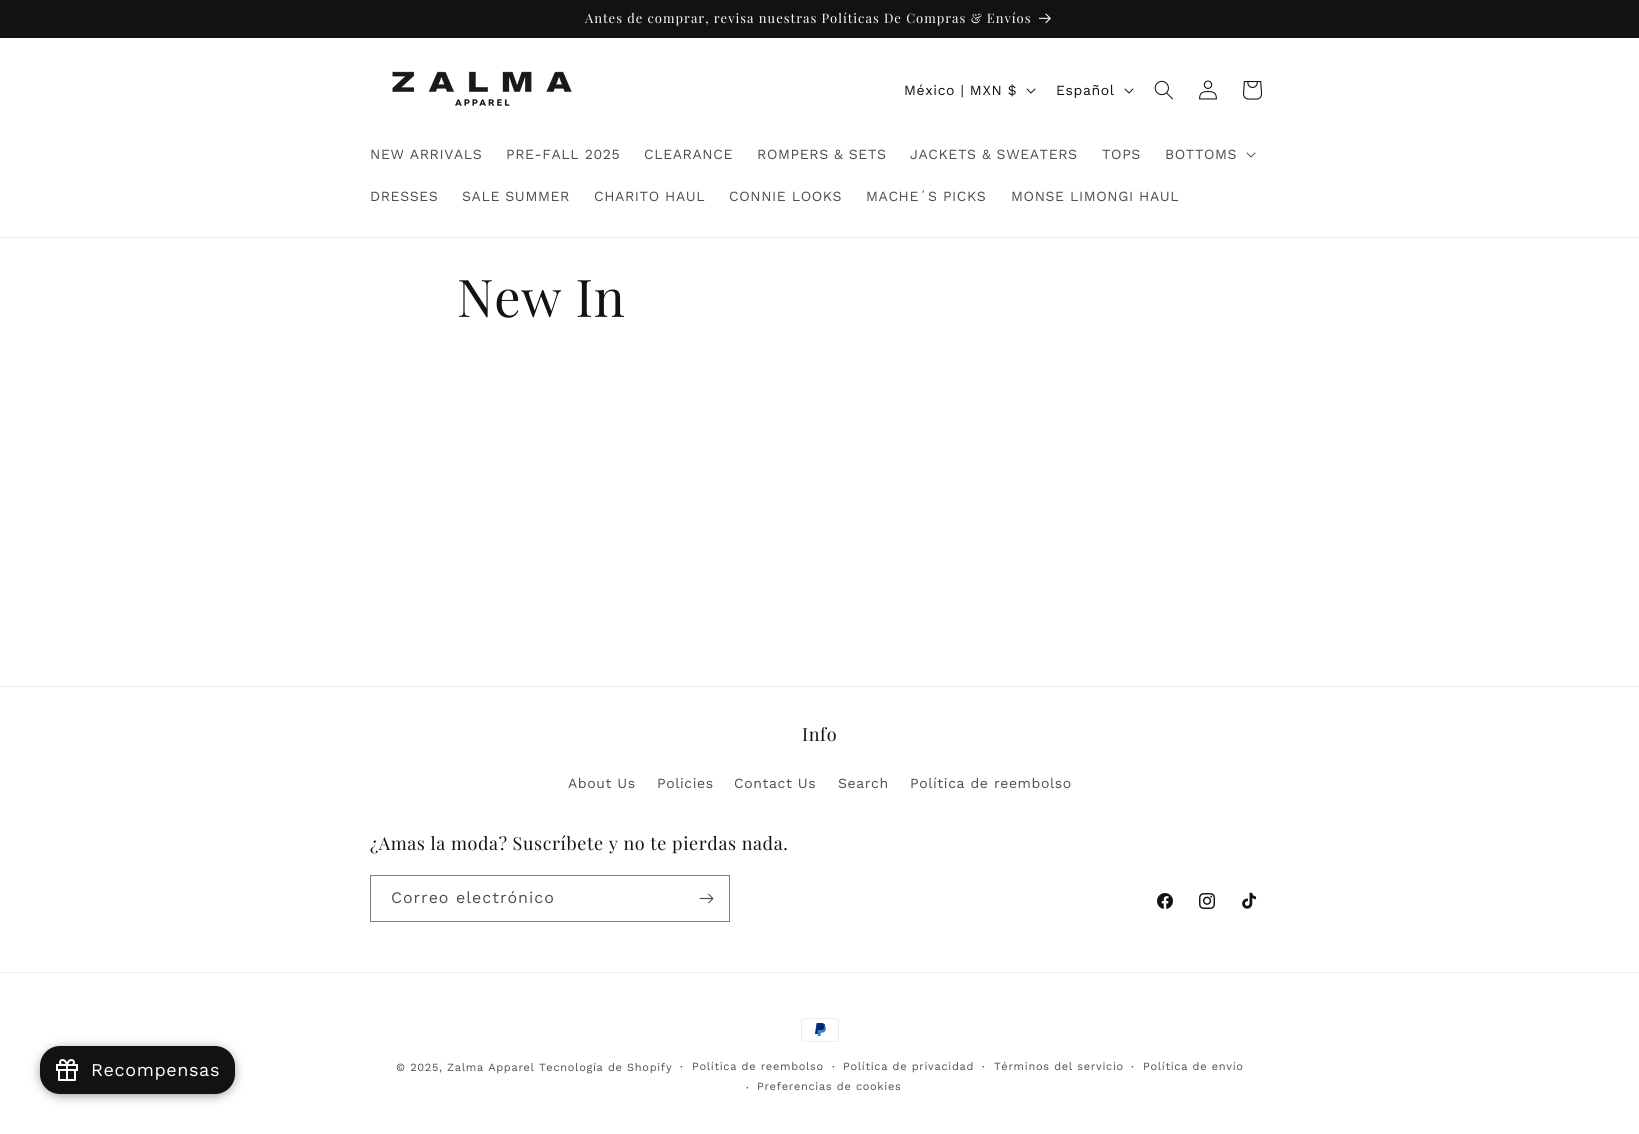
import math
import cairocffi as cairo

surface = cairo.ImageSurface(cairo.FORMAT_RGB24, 1639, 1134)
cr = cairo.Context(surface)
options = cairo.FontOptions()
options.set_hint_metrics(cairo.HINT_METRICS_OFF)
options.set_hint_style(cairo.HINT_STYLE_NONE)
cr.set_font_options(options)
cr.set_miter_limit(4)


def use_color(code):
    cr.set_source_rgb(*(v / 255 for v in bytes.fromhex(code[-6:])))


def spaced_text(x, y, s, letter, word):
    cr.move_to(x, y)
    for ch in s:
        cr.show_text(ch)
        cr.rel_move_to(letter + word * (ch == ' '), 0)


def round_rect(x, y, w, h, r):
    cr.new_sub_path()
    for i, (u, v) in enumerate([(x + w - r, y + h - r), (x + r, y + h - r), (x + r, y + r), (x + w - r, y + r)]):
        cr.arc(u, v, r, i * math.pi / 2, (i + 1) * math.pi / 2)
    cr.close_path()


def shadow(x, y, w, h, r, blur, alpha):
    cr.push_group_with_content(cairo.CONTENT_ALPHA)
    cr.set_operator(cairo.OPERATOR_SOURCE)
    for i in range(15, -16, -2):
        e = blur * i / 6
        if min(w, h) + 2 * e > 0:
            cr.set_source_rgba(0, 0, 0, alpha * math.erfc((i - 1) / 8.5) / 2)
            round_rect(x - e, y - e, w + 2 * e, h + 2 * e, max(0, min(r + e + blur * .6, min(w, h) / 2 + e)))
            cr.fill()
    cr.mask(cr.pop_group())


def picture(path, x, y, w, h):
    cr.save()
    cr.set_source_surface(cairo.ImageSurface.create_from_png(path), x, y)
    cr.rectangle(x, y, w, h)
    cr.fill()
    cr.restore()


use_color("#ffffff")
cr.paint()
use_color("#121212")
cr.rectangle(0, 0, 1639, 38)
cr.fill()
cr.select_font_face("Playfair Display")
cr.set_font_size(13)
use_color("#ffffff")
spaced_text(585, 23, "Antes de comprar, revisa nuestras Políticas De Compras & Envíos", 1, 0)
picture("img1.png", 1039, 13, 12, 11)
use_color("#ececec")
cr.rectangle(0, 237, 1639, 1)
cr.fill()
picture("img2.png", 392, 71, 180, 35)
cr.select_font_face("Work Sans")
cr.set_font_size(14)
use_color("#121212")
spaced_text(904, 95, "México | MXN $", 0.6, 0)
picture("img3.png", 1026, 88, 10, 6)
spaced_text(1056, 95, "Español", 0.6, 0)
picture("img3.png", 1124, 88, 10, 6)
picture("img4.png", 1154, 80, 19, 20)
picture("img5.png", 1199, 80, 18, 20)
picture("img6.png", 1243, 81, 20, 19)
use_color("#4d4d4d")
spaced_text(370, 159, "NEW ARRIVALS", 0.6, 0)
spaced_text(506, 159, "PRE-FALL 2025", 0.6, 0)
spaced_text(644, 159, "CLEARANCE", 0.6, 0)
spaced_text(757, 159, "ROMPERS & SETS", 0.6, 0)
spaced_text(910, 159, "JACKETS & SWEATERS", 0.6, 0)
spaced_text(1102, 159, "TOPS", 0.6, 0)
spaced_text(1165, 159, "BOTTOMS", 0.6, 0)
picture("img7.png", 1246, 152, 10, 6)
spaced_text(370, 201, "DRESSES", 0.6, 0)
spaced_text(462, 201, "SALE SUMMER", 0.6, 0)
spaced_text(594, 201, "CHARITO HAUL", 0.6, 0)
spaced_text(729, 201, "CONNIE LOOKS", 0.6, 0)
spaced_text(866, 201, "MACHE´S PICKS", 0.6, 0)
spaced_text(1011, 201, "MONSE LIMONGI HAUL", 0.6, 0)
cr.select_font_face("Playfair Display")
cr.set_font_size(52)
use_color("#121212")
spaced_text(457, 317, "New In", 0.6, 0)
use_color("#000000")
shadow(42, 1050, 191, 44, 18, 6, 0.5)
use_color("#121212")
round_rect(40, 1046, 195, 48, 20)
cr.fill()
picture("img8.png", 56, 1059, 22, 22)
cr.select_font_face("Work Sans")
cr.set_font_size(18)
use_color("#ffffff")
spaced_text(91, 1076, "Recompensas", 0.6, 0)
use_color("#ececec")
cr.rectangle(0, 686, 1639, 1)
cr.fill()
cr.select_font_face("Playfair Display")
use_color("#121212")
spaced_text(802, 741, "Info", 0.6, 0)
cr.select_font_face("Work Sans")
cr.set_font_size(14)
use_color("#4d4d4d")
spaced_text(568, 788, "About Us", 0.6, 0)
spaced_text(657, 788, "Policies", 0.6, 0)
spaced_text(734, 788, "Contact Us", 0.6, 0)
spaced_text(838, 788, "Search", 0.6, 0)
spaced_text(910, 788, "Política de reembolso", 0.6, 0)
cr.select_font_face("Playfair Display")
cr.set_font_size(18)
use_color("#121212")
spaced_text(370, 850, "¿Amas la moda? Suscríbete y no te pierdas nada.", 0.6, 0)
cr.rectangle(370.5, 875.5, 359, 46)
use_color("#7d7d7d")
cr.set_line_width(1)
cr.stroke()
cr.select_font_face("Work Sans")
cr.set_font_size(16)
use_color("#4d4d4d")
spaced_text(391, 903, "Correo electrónico", 1, 0)
picture("img9.png", 699, 893, 15, 11)
picture("img10.png", 1157, 893, 16, 16)
picture("img11.png", 1199, 893, 16, 16)
picture("img12.png", 1242, 892, 15, 17)
use_color("#ececec")
cr.rectangle(0, 972, 1639, 1)
cr.fill()
picture("img13.png", 801, 1018, 38, 24)
cr.set_font_size(11)
use_color("#4d4d4d")
spaced_text(396, 1071, "© 2025, Zalma Apparel", 0.7, 0)
spaced_text(539, 1071, "Tecnología de Shopify", 0.7, 0)
cr.set_font_size(12)
spaced_text(680, 1071, "·", 0.7, 0)
cr.set_font_size(11)
spaced_text(692, 1070, "Política de reembolso", 0.7, 0)
cr.set_font_size(12)
spaced_text(832, 1071, "·", 0.7, 0)
cr.set_font_size(11)
spaced_text(843, 1070, "Política de privacidad", 0.7, 0)
cr.set_font_size(12)
spaced_text(982, 1071, "·", 0.7, 0)
cr.set_font_size(11)
spaced_text(994, 1070, "Términos del servicio", 0.7, 0)
cr.set_font_size(12)
spaced_text(1131, 1071, "·", 0.7, 0)
cr.set_font_size(11)
spaced_text(1143, 1070, "Política de envío", 0.7, 0)
cr.set_font_size(12)
spaced_text(746, 1092, "·", 0.7, 0)
cr.set_font_size(11)
spaced_text(757, 1090, "Preferencias de cookies", 0.7, 0)
surface.write_to_png("result.png")
